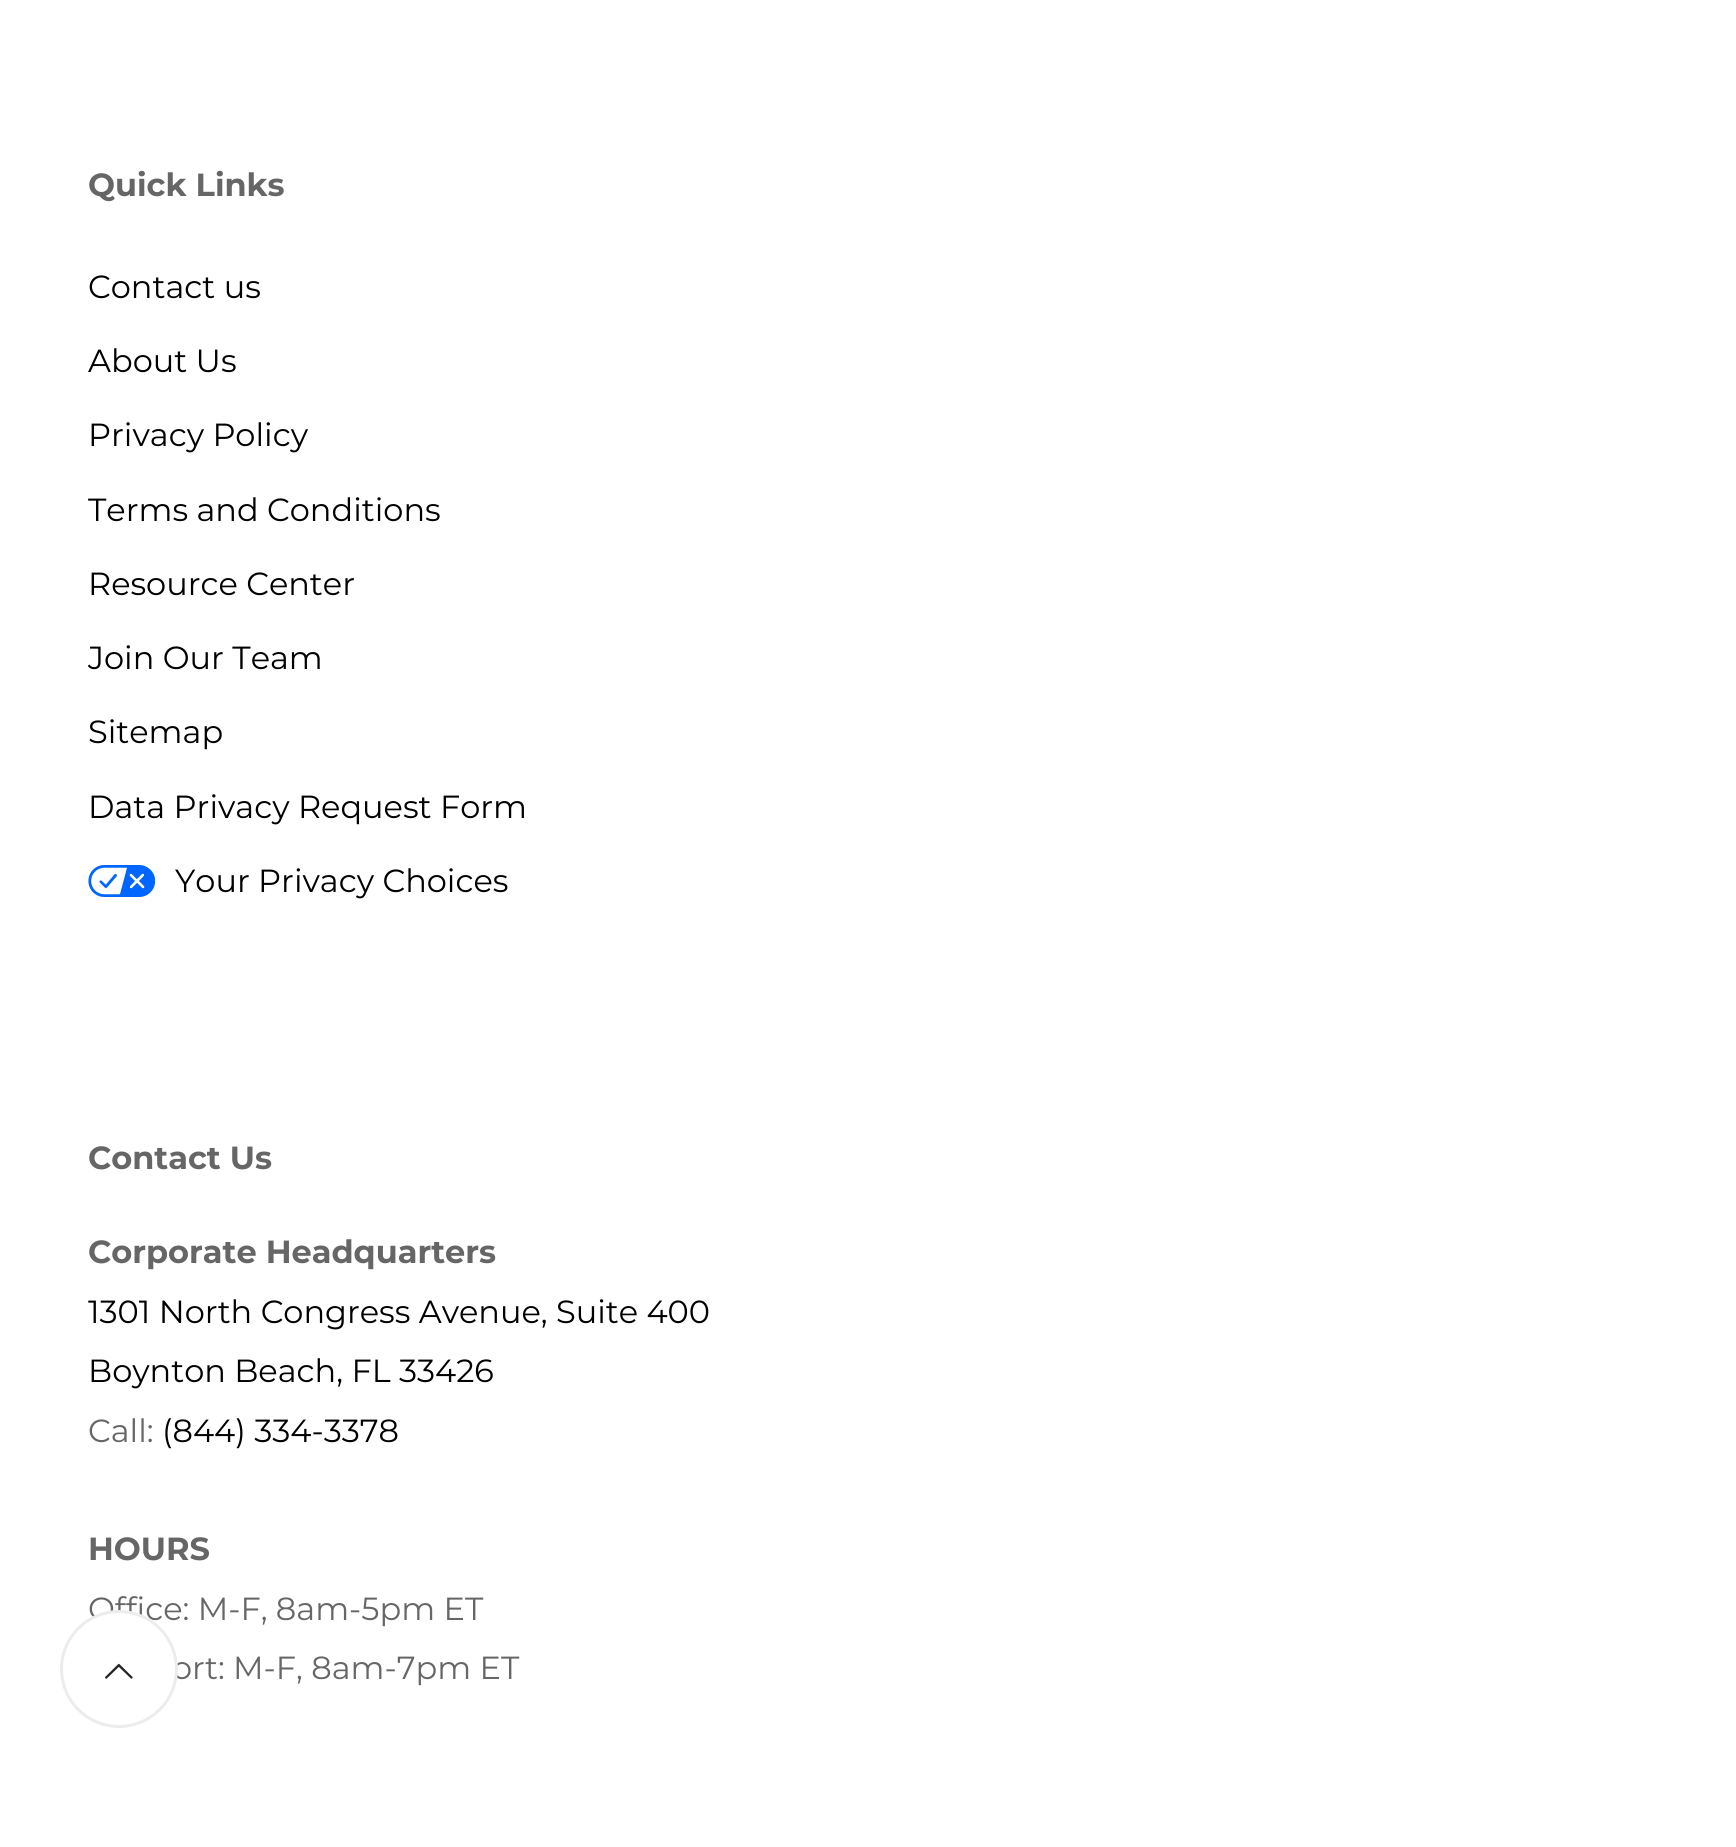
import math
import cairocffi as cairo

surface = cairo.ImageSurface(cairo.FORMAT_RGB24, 1736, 1847)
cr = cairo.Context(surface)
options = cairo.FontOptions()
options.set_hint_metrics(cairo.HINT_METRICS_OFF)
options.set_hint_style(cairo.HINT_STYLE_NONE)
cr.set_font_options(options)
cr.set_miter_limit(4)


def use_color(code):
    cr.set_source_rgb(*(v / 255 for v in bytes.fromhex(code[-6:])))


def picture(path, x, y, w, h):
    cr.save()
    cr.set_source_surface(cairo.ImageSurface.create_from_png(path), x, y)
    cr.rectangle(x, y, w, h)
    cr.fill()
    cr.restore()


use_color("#ffffff")
cr.paint()
cr.select_font_face("Montserrat", cairo.FONT_SLANT_NORMAL, cairo.FONT_WEIGHT_BOLD)
cr.set_font_size(32)
use_color("#666666")
cr.move_to(88, 196)
cr.show_text("Quick Links")
cr.select_font_face("Montserrat")
use_color("#000000")
cr.move_to(88, 298)
cr.show_text("Contact us")
cr.move_to(88, 372)
cr.show_text("About Us")
cr.move_to(88, 446)
cr.show_text("Privacy Policy")
cr.move_to(88, 521)
cr.show_text("Terms and Conditions")
cr.move_to(88, 595)
cr.show_text("Resource Center")
cr.move_to(88, 669)
cr.show_text("Join Our Team")
cr.move_to(88, 743)
cr.show_text("Sitemap")
cr.move_to(88, 818)
cr.show_text("Data Privacy Request Form")
picture("img1.png", 88, 865, 67, 32)
cr.move_to(175, 892)
cr.show_text("Your Privacy Choices")
cr.select_font_face("Montserrat", cairo.FONT_SLANT_NORMAL, cairo.FONT_WEIGHT_BOLD)
use_color("#666666")
cr.move_to(88, 1169)
cr.show_text("Contact Us")
cr.move_to(88, 1263)
cr.show_text("Corporate Headquarters")
cr.select_font_face("Montserrat")
use_color("#000000")
cr.move_to(88, 1323)
cr.show_text("1301 North Congress Avenue, Suite 400")
cr.move_to(88, 1382)
cr.show_text("Boynton Beach, FL 33426")
use_color("#666666")
cr.move_to(88, 1442)
cr.show_text("Call:")
use_color("#000000")
cr.move_to(162, 1442)
cr.show_text("(844) 334-3378")
cr.select_font_face("Montserrat", cairo.FONT_SLANT_NORMAL, cairo.FONT_WEIGHT_BOLD)
use_color("#666666")
cr.move_to(88, 1560)
cr.show_text("HOURS")
cr.select_font_face("Montserrat")
cr.move_to(88, 1620)
cr.show_text("Office: M-F, 8am-5pm ET")
cr.move_to(172, 1679)
cr.show_text("ort: M-F, 8am-7pm ET")
use_color("#ffffff")
cr.new_path()
cr.arc(119, 1669, 57.5, 0, 2 * math.pi)
cr.fill_preserve()
use_color("#ececec")
cr.set_line_width(3)
cr.stroke()
picture("img2.png", 105, 1663, 28, 16)
surface.write_to_png("result.png")
